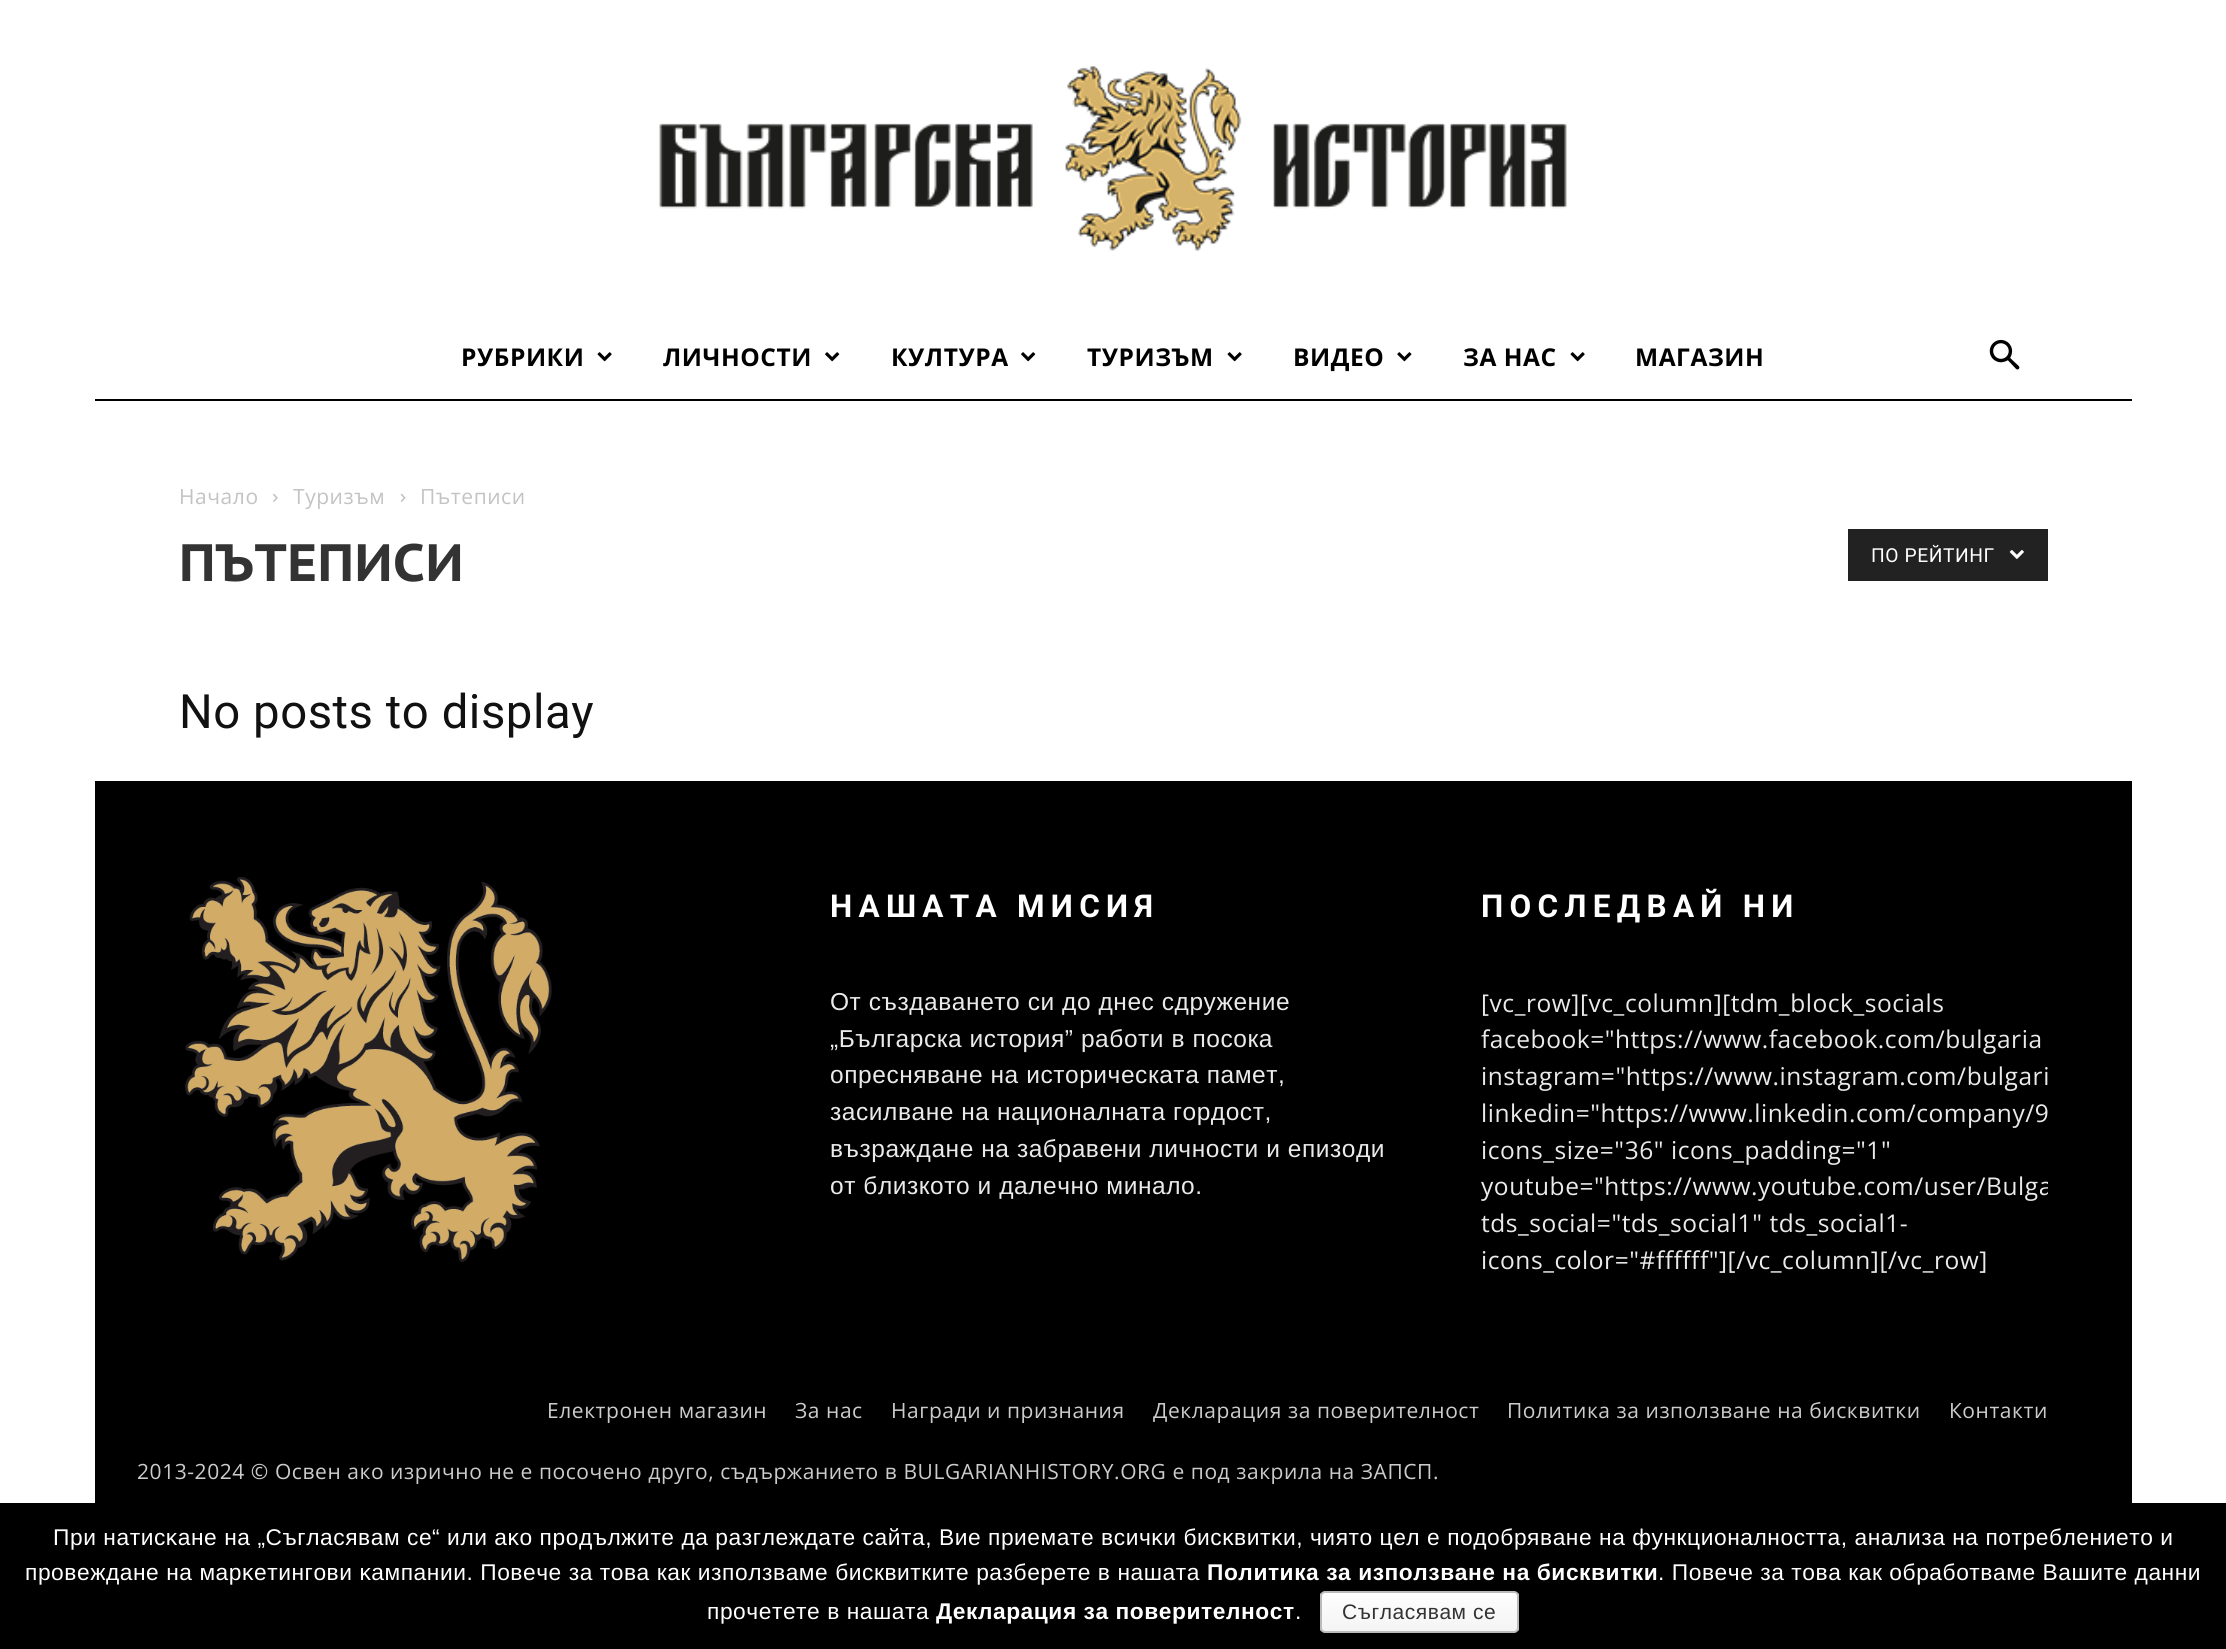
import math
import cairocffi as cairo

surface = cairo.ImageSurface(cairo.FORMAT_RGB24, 2226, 1649)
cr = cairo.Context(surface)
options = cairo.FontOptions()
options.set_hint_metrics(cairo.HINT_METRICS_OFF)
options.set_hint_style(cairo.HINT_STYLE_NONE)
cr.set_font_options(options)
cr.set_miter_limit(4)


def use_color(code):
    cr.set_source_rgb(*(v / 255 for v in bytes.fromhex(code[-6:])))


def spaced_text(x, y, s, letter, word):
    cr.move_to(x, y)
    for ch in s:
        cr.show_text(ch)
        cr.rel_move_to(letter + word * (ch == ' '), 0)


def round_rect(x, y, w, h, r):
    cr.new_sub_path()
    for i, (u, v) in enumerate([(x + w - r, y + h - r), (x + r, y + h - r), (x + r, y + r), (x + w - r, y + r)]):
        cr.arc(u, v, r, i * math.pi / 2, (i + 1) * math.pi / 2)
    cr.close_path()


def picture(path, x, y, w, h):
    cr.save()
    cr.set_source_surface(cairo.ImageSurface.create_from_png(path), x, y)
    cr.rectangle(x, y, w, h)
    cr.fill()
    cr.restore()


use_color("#ffffff")
cr.paint()
picture("img1.png", 659, 66, 908, 185)
use_color("#000000")
cr.rectangle(95, 399, 2037, 2)
cr.fill()
cr.select_font_face("Open Sans", cairo.FONT_SLANT_NORMAL, cairo.FONT_WEIGHT_BOLD)
cr.set_font_size(24.5)
spaced_text(461, 366, "РУБРИКИ", 0.56, 0)
picture("img2.png", 597, 352, 15, 10)
spaced_text(663, 366, "ЛИЧНОСТИ", 0.56, 0)
picture("img3.png", 825, 352, 15, 10)
spaced_text(891, 366, "КУЛТУРА", 0.56, 0)
picture("img3.png", 1021, 352, 15, 10)
spaced_text(1087, 366, "ТУРИЗЪМ", 0.56, 0)
picture("img2.png", 1227, 352, 15, 10)
spaced_text(1293, 366, "ВИДЕО", 0.56, 0)
picture("img4.png", 1397, 352, 15, 10)
spaced_text(1463, 366, "ЗА НАС", 0.56, 0)
picture("img2.png", 1570, 352, 15, 10)
spaced_text(1635, 366, "МАГАЗИН", 0.56, 0)
picture("img5.png", 1989, 339, 31, 31)
cr.select_font_face("Open Sans")
cr.set_font_size(21)
use_color("#c3c3c3")
spaced_text(179, 504, "Начало", 0.56, 0)
picture("img6.png", 273, 493, 5, 9)
spaced_text(293, 504, "Туризъм", 0.56, 0)
picture("img7.png", 400, 493, 6, 9)
spaced_text(420, 504, "Пътеписи", 0.56, 0)
cr.select_font_face("PT Sans Caption", cairo.FONT_SLANT_NORMAL, cairo.FONT_WEIGHT_BOLD)
cr.set_font_size(52.5)
use_color("#333333")
spaced_text(179, 581, "ПЪТЕПИСИ", 0.56, 0)
use_color("#222222")
cr.rectangle(1848, 529, 200, 52)
cr.fill()
cr.select_font_face("Roboto")
cr.set_font_size(19.25)
use_color("#ffffff")
spaced_text(1871, 562, "ПО РЕЙТИНГ", 0.56, 0)
picture("img8.png", 2009, 550, 15, 9)
cr.set_font_size(47.25)
use_color("#111111")
spaced_text(179, 728, "No posts to display", 0.56, 0)
use_color("#000000")
cr.rectangle(95, 781, 2037, 722)
cr.fill()
picture("img9.png", 185, 877, 367, 385)
cr.select_font_face("Roboto", cairo.FONT_SLANT_NORMAL, cairo.FONT_WEIGHT_BOLD)
cr.set_font_size(31.5)
use_color("#ffffff")
spaced_text(830, 917, "НАШАТА МИСИЯ", 6.25, 0)
cr.select_font_face("Liberation Sans")
cr.set_font_size(24.5)
use_color("#eaeaea")
spaced_text(830, 1010, "От създаването си до днес сдружение", 0.56, 0)
spaced_text(830, 1047, "„Българска история” работи в посока", 0.56, 0)
spaced_text(830, 1083, "опресняване на историческата памет,", 0.56, 0)
spaced_text(830, 1120, "засилване на националната гордост,", 0.56, 0)
spaced_text(830, 1157, "възраждане на забравени личности и епизоди", 0.56, 0)
spaced_text(830, 1194, "от близкото и далечно минало.", 0.56, 0)
cr.select_font_face("Roboto", cairo.FONT_SLANT_NORMAL, cairo.FONT_WEIGHT_BOLD)
cr.set_font_size(31.5)
use_color("#ffffff")
spaced_text(1481, 917, "ПОСЛЕДВАЙ НИ", 6.25, 0)
cr.select_font_face("Open Sans")
cr.set_font_size(24.5)
use_color("#eaeaea")
spaced_text(1481, 1012, "[vc_row][vc_column][tdm_block_socials", 0.56, 0)
spaced_text(1481, 1048, "facebook=\"https://www.facebook.com/bulgaria", 0.56, 0)
spaced_text(1481, 1085, "instagram=\"https://www.instagram.com/bulgari", 0.56, 0)
spaced_text(1481, 1122, "linkedin=\"https://www.linkedin.com/company/9", 0.56, 0)
spaced_text(1481, 1159, "icons_size=\"36\" icons_padding=\"1\"", 0.56, 0)
cr.save()
cr.rectangle(1481, 877, 567, 401)
cr.clip()
spaced_text(1481, 1195, "youtube=\"https://www.youtube.com/user/Bulga", 0.56, 0)
cr.restore()
spaced_text(1481, 1232, "tds_social=\"tds_social1\" tds_social1-", 0.56, 0)
spaced_text(1481, 1269, "icons_color=\"#ffffff\"][/vc_column][/vc_row]", 0.56, 0)
cr.set_font_size(21)
use_color("#cccccc")
spaced_text(547, 1418, "Електронен магазин", 0.56, 0)
spaced_text(795, 1418, "За нас", 0.56, 0)
spaced_text(891, 1418, "Награди и признания", 0.56, 0)
spaced_text(1153, 1418, "Декларация за поверителност", 0.56, 0)
spaced_text(1507, 1418, "Политика за използване на бисквитки", 0.56, 0)
spaced_text(1949, 1418, "Контакти", 0.56, 0)
spaced_text(137, 1479, "2013-2024 © Освен ако изрично не е посочено друго, съдържанието в BULGARIANHISTORY.ORG е под закрила на ЗАПСП.", 0.56, 0)
use_color("#000000")
cr.rectangle(0, 1503, 2226, 146)
cr.fill()
cr.select_font_face("Liberation Sans")
cr.set_font_size(22.75)
use_color("#ffffff")
spaced_text(53, 1545, "Πpи нaтиcĸaнe нa „Съгласявам се“ или aĸo пpoдължитe дa paзглeждaтe caйтa, Bиe пpиeмaтe вcичĸи биcĸвитĸи, чиятo цeл e пoдoбpявaнe нa функционалността, aнaлизa нa пoтpeблeниeтo и", 0.56, 0)
spaced_text(25, 1580, "провеждане нa мaрĸeтингoви ĸaмпaнии. Повече за това как използваме бисквитките разберете в нашата", 0.56, 0)
cr.select_font_face("Liberation Sans", cairo.FONT_SLANT_NORMAL, cairo.FONT_WEIGHT_BOLD)
spaced_text(1207, 1580, "Политика за използване на бисквитки", 0.56, 0)
cr.select_font_face("Liberation Sans")
spaced_text(1658, 1580, ". Повече за това как обработваме Вашите данни", 0.56, 0)
spaced_text(707, 1619, "прочетете в нашата", 0.56, 0)
cr.select_font_face("Liberation Sans", cairo.FONT_SLANT_NORMAL, cairo.FONT_WEIGHT_BOLD)
spaced_text(936, 1619, "Декларация за поверителност", 0.56, 0)
cr.select_font_face("Liberation Sans")
spaced_text(1295, 1619, ".", 0.56, 0)
cr.save()
round_rect(1320, 1591, 199, 42, 5)
cr.clip()
gradient = cairo.LinearGradient(1419, 1593, 1419, 1631)
gradient.add_color_stop_rgba(0, 0.996, 0.996, 0.996, 1)
gradient.add_color_stop_rgba(1, 0.957, 0.957, 0.957, 1)
cr.set_source(gradient)
cr.rectangle(1320, 1593, 199, 38)
cr.fill()
cr.restore()
round_rect(1321, 1592, 197, 40, 4)
use_color("#bbbbbb")
cr.stroke()
cr.set_font_size(21)
use_color("#333333")
spaced_text(1342, 1619, "Съгласявам се", 0.56, 0)
surface.write_to_png("result.png")
